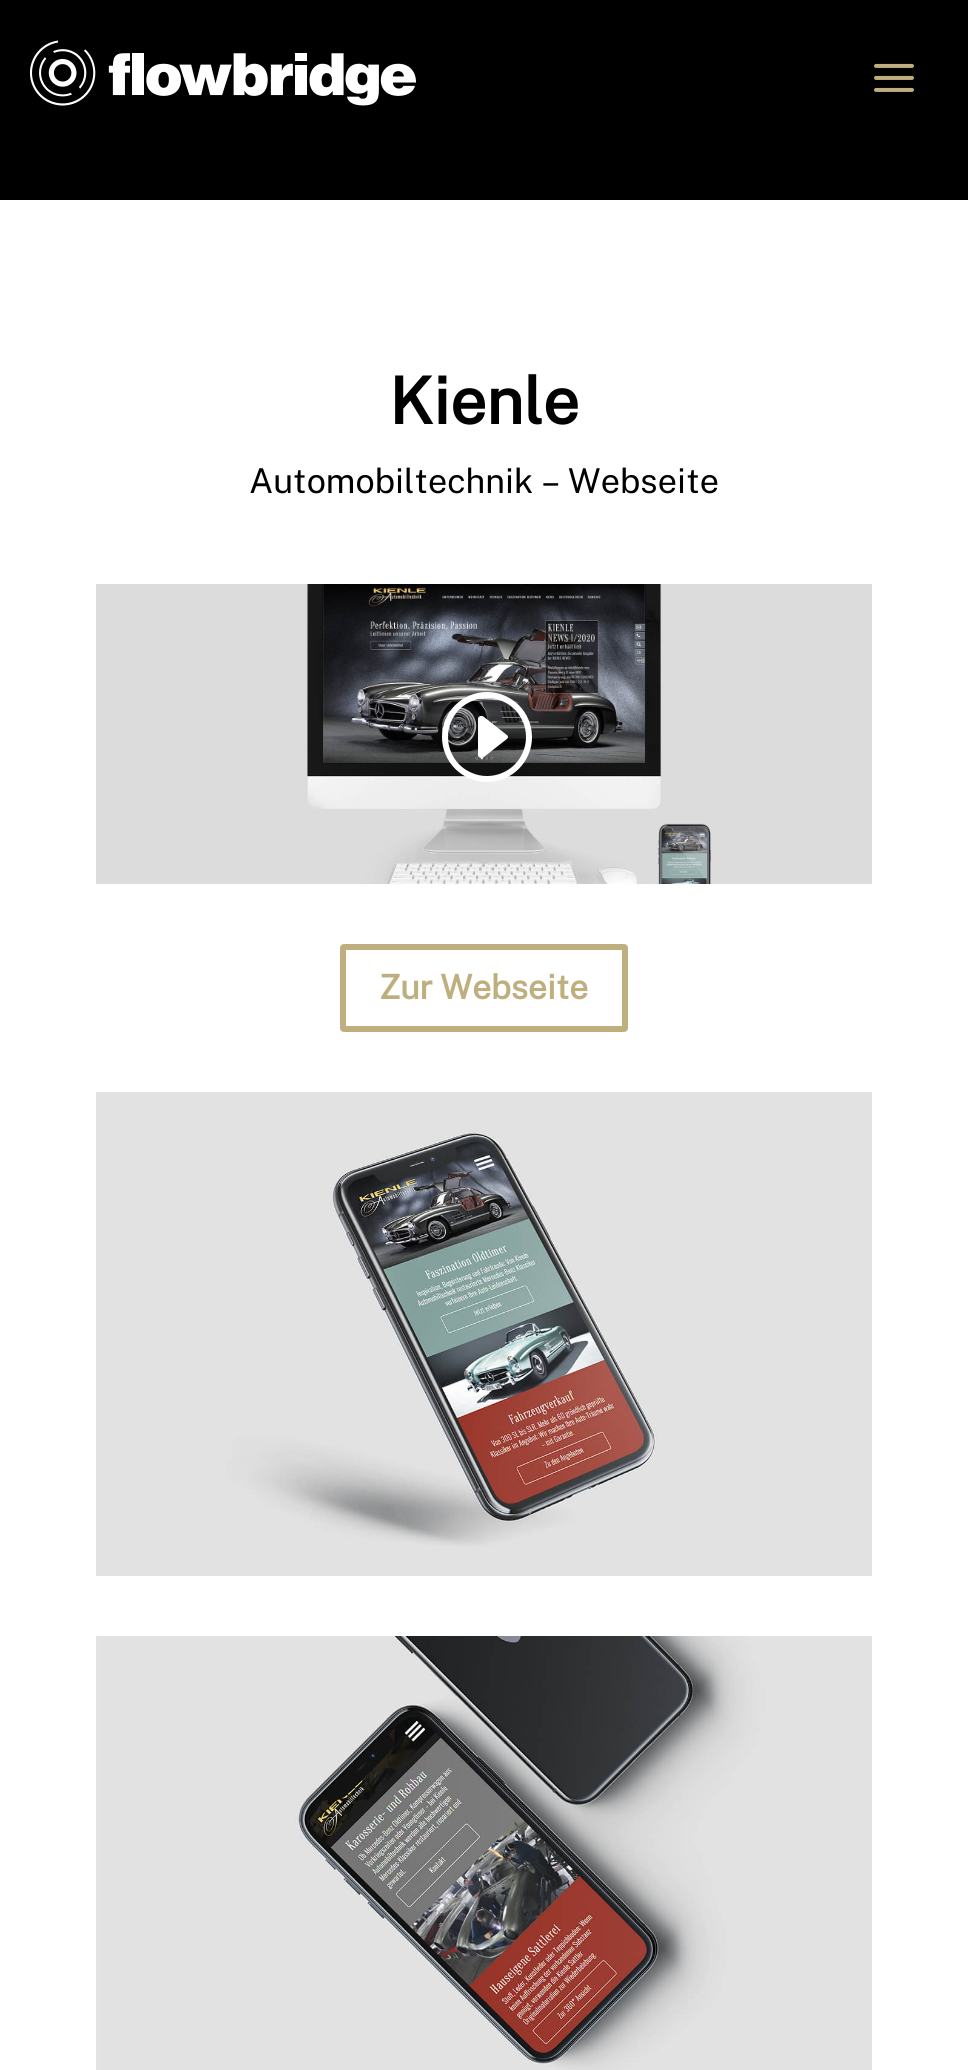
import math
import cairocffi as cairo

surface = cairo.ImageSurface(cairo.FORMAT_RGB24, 968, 2070)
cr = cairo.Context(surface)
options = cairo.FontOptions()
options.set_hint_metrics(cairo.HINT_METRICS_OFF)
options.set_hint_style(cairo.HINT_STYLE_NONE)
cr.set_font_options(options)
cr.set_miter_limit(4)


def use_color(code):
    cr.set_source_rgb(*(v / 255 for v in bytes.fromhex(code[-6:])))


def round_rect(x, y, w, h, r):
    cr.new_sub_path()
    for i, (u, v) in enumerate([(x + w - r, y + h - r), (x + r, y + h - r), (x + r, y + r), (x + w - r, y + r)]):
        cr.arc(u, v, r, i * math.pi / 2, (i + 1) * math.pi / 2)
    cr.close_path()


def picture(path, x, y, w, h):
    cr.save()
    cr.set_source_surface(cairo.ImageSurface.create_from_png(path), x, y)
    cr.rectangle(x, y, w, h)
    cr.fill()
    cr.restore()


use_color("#000000")
cr.paint()
picture("img1.png", 30, 40, 386, 66)
picture("img2.png", 874, 63, 40, 29)
use_color("#ffffff")
cr.rectangle(0, 200, 968, 1870)
cr.fill()
cr.select_font_face("Public Sans", cairo.FONT_SLANT_NORMAL, cairo.FONT_WEIGHT_BOLD)
cr.set_font_size(64.5)
use_color("#000000")
cr.move_to(389, 424)
cr.show_text("Kienle")
cr.select_font_face("Public Sans Thin")
cr.set_font_size(34.2)
cr.move_to(249, 493)
cr.show_text("Automobiltechnik – Webseite")
picture("img3.png", 96, 584, 776, 300)
picture("img4.png", 442, 692, 90, 90)
round_rect(343, 947, 282, 82, 1)
use_color("#bfaf7f")
cr.set_line_width(6)
cr.stroke()
cr.select_font_face("Public Sans", cairo.FONT_SLANT_NORMAL, cairo.FONT_WEIGHT_BOLD)
cr.set_font_size(33.5)
cr.move_to(379, 999)
cr.show_text("Zur Webseite")
picture("img5.png", 96, 1092, 776, 484)
picture("img6.png", 96, 1636, 776, 434)
surface.write_to_png("result.png")
